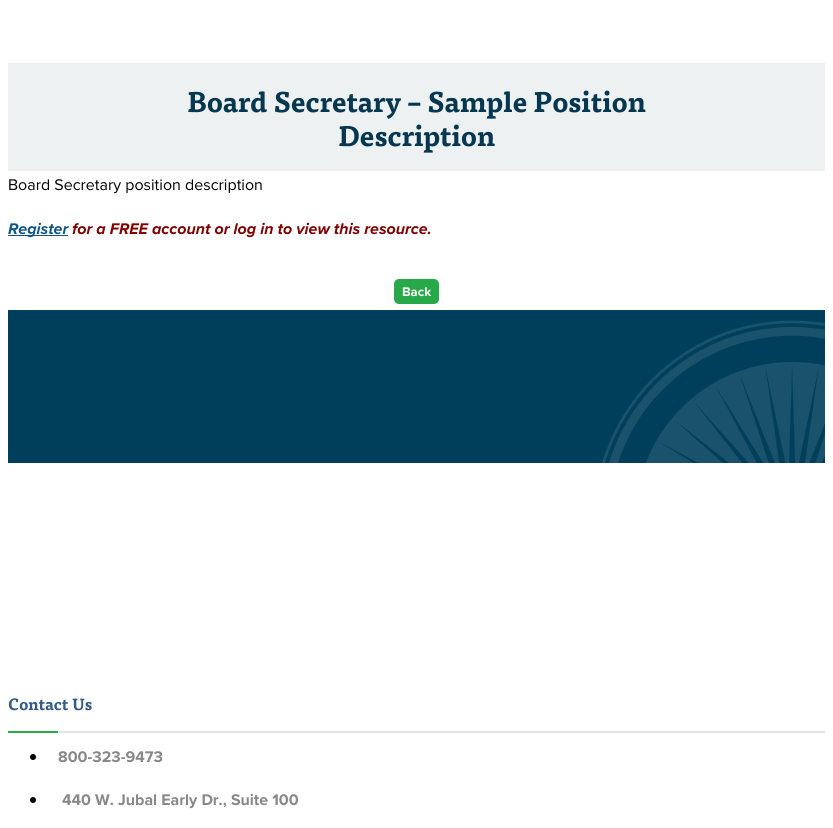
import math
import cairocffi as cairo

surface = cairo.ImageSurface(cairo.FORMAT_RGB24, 833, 828)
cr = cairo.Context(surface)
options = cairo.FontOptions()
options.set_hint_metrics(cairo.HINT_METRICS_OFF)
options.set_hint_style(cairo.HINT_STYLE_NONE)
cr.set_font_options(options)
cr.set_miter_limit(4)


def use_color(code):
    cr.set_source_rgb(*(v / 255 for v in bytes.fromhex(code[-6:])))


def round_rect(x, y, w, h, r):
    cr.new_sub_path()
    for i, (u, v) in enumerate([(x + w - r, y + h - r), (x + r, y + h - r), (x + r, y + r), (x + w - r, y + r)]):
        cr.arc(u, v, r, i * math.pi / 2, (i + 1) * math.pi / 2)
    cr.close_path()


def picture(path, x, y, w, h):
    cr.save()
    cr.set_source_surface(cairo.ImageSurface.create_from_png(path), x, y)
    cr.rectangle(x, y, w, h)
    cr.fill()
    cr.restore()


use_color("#ffffff")
cr.paint()
use_color("#eef1f2")
cr.rectangle(8, 63, 817, 108)
cr.fill()
cr.select_font_face("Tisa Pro", cairo.FONT_SLANT_NORMAL, cairo.FONT_WEIGHT_BOLD)
cr.set_font_size(28)
use_color("#063751")
cr.move_to(187, 112)
cr.show_text("Board Secretary – Sample Position")
cr.move_to(338, 146)
cr.show_text("Description")
cr.select_font_face("Proxima Nova")
cr.set_font_size(16)
use_color("#000000")
cr.move_to(8, 190)
cr.show_text("Board Secretary position description")
use_color("#11568b")
cr.rectangle(8, 235, 60, 1)
cr.fill()
cr.select_font_face("Proxima Nova", cairo.FONT_SLANT_ITALIC, cairo.FONT_WEIGHT_BOLD)
cr.move_to(8, 234)
cr.show_text("Register")
use_color("#800000")
cr.move_to(72, 234)
cr.show_text("for a FREE account or log in to view this resource.")
use_color("#28a949")
round_rect(395, 280, 43, 23, 4)
cr.fill_preserve()
cr.stroke()
cr.select_font_face("Proxima Nova", cairo.FONT_SLANT_NORMAL, cairo.FONT_WEIGHT_BOLD)
cr.set_font_size(13)
use_color("#ffffff")
cr.move_to(402, 296)
cr.show_text("Back")
picture("img1.png", 8, 310, 817, 153)
cr.select_font_face("Tisa Pro", cairo.FONT_SLANT_NORMAL, cairo.FONT_WEIGHT_BOLD)
cr.set_font_size(16)
use_color("#345b89")
cr.move_to(8, 710)
cr.show_text("Contact Us")
use_color("#e5e5e5")
cr.rectangle(58, 731, 767, 2)
cr.fill()
use_color("#28a949")
cr.rectangle(8, 731, 50, 2)
cr.fill()
use_color("#000000")
cr.arc(33, 757, 3, 0, 2 * math.pi)
cr.fill()
cr.select_font_face("Proxima Nova", cairo.FONT_SLANT_NORMAL, cairo.FONT_WEIGHT_BOLD)
use_color("#888888")
cr.move_to(58, 762)
cr.show_text("800-323-9473")
use_color("#000000")
cr.new_path()
cr.arc(33, 800, 3, 0, 2 * math.pi)
cr.fill()
use_color("#888888")
cr.move_to(62, 805)
cr.show_text("440 W. Jubal Early Dr., Suite 100")
surface.write_to_png("result.png")
